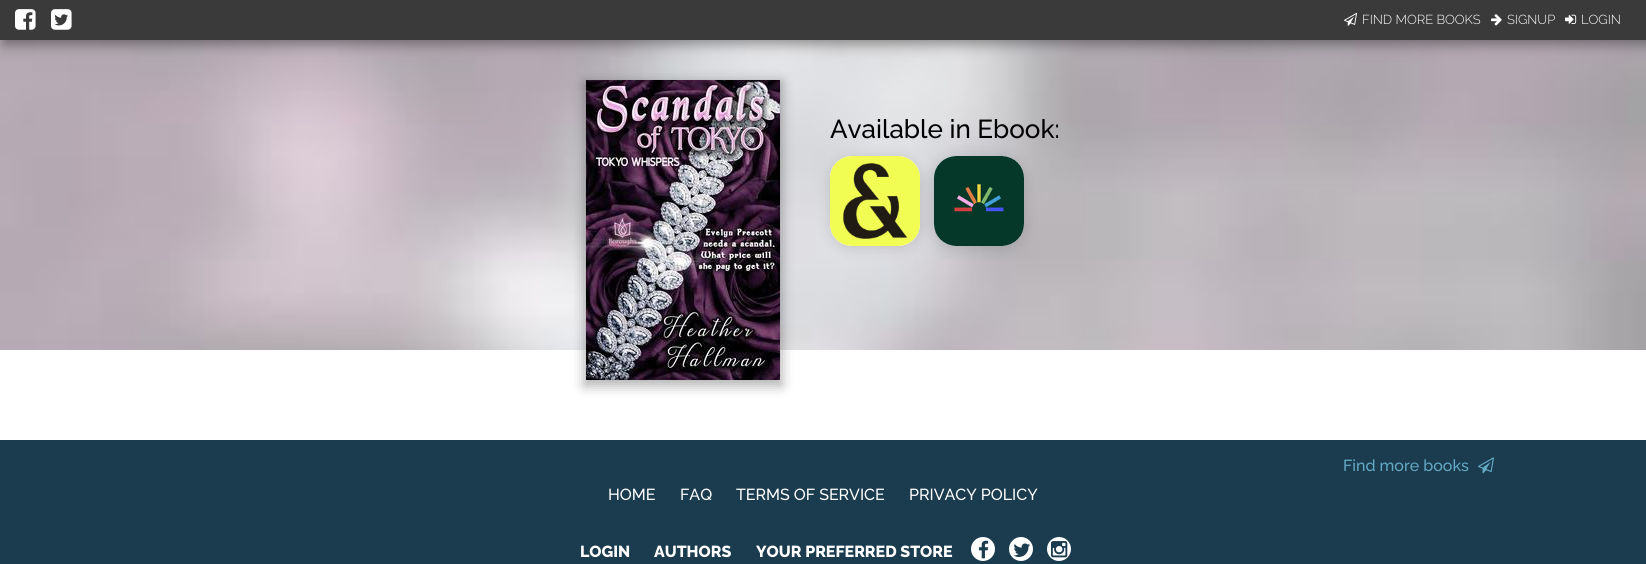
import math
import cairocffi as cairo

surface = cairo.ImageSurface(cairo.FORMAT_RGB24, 1646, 564)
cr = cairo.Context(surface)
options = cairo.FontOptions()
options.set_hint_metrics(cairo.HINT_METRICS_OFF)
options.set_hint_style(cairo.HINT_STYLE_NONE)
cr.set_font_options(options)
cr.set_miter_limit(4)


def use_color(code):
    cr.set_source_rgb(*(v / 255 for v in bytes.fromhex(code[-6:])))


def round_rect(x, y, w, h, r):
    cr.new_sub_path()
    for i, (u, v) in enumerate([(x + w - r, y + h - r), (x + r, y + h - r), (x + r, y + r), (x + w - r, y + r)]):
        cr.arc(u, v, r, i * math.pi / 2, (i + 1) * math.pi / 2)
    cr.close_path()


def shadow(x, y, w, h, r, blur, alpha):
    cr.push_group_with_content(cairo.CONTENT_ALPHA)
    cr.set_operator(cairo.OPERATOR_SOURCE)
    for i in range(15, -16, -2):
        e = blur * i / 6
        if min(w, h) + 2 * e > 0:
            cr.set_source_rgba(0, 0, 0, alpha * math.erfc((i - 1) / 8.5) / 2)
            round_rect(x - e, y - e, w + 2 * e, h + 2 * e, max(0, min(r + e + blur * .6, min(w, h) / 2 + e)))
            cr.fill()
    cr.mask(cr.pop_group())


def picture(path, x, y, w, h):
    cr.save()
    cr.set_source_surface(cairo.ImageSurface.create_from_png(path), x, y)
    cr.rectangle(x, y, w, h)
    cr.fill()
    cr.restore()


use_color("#ffffff")
cr.paint()
picture("img1.png", 0, 40, 1646, 310)
use_color("#000000")
shadow(4, 4, 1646, 40, 0, 7, 0.4)
use_color("#3a3a3a")
cr.rectangle(0, 0, 1646, 40)
cr.fill()
picture("img2.png", 15, 9, 21, 21)
picture("img3.png", 51, 9, 21, 21)
picture("img4.png", 1344, 12, 13, 14)
cr.select_font_face("Raleway Light")
cr.set_font_size(13)
use_color("#ffffff")
cr.move_to(1362, 24)
cr.show_text("FIND MORE BOOKS")
picture("img5.png", 1491, 14, 11, 12)
cr.move_to(1507, 24)
cr.show_text("SIGNUP")
picture("img6.png", 1565, 14, 12, 10)
cr.move_to(1581, 24)
cr.show_text("LOGIN")
use_color("#000000")
shadow(584, 82, 198, 304, 0, 6, 0.3)
picture("img7.png", 586, 80, 194, 300)
shadow(828, 156, 94, 94, 24, 6, 0.1)
use_color("#ffffff")
round_rect(830, 156, 90, 90, 22)
cr.fill()
picture("img8.png", 830, 156, 90, 90)
use_color("#000000")
shadow(932, 156, 94, 94, 24, 6, 0.1)
cr.select_font_face("Raleway Medium")
cr.set_font_size(26)
use_color("#000000")
cr.move_to(830, 138)
cr.show_text("Available in Ebook:")
use_color("#ffffff")
round_rect(934, 156, 90, 90, 22)
cr.fill()
picture("img9.png", 934, 156, 90, 90)
use_color("#1b3b4f")
cr.rectangle(0, 440, 1646, 124)
cr.fill()
cr.set_font_size(16)
use_color("#63aac5")
cr.move_to(1343, 471)
cr.show_text("Find more books")
picture("img10.png", 1478, 457, 16, 17)
use_color("#ffffff")
cr.move_to(608, 500)
cr.show_text("HOME")
cr.move_to(680, 500)
cr.show_text("FAQ")
cr.move_to(736, 500)
cr.show_text("TERMS OF SERVICE")
cr.move_to(909, 500)
cr.show_text("PRIVACY POLICY")
cr.select_font_face("Raleway ExtraBold")
cr.move_to(580, 557)
cr.show_text("LOGIN")
cr.move_to(654, 557)
cr.show_text("AUTHORS")
cr.move_to(756, 557)
cr.show_text("YOUR PREFERRED STORE")
cr.new_path()
cr.arc(983, 549, 12, 0, 2 * math.pi)
cr.fill()
picture("img11.png", 979, 540, 10, 19)
cr.arc(1021, 549, 12, 0, 2 * math.pi)
cr.fill()
picture("img12.png", 1013, 543, 17, 14)
cr.arc(1059, 549, 12, 0, 2 * math.pi)
cr.fill()
picture("img13.png", 1051, 541, 17, 17)
surface.write_to_png("result.png")
